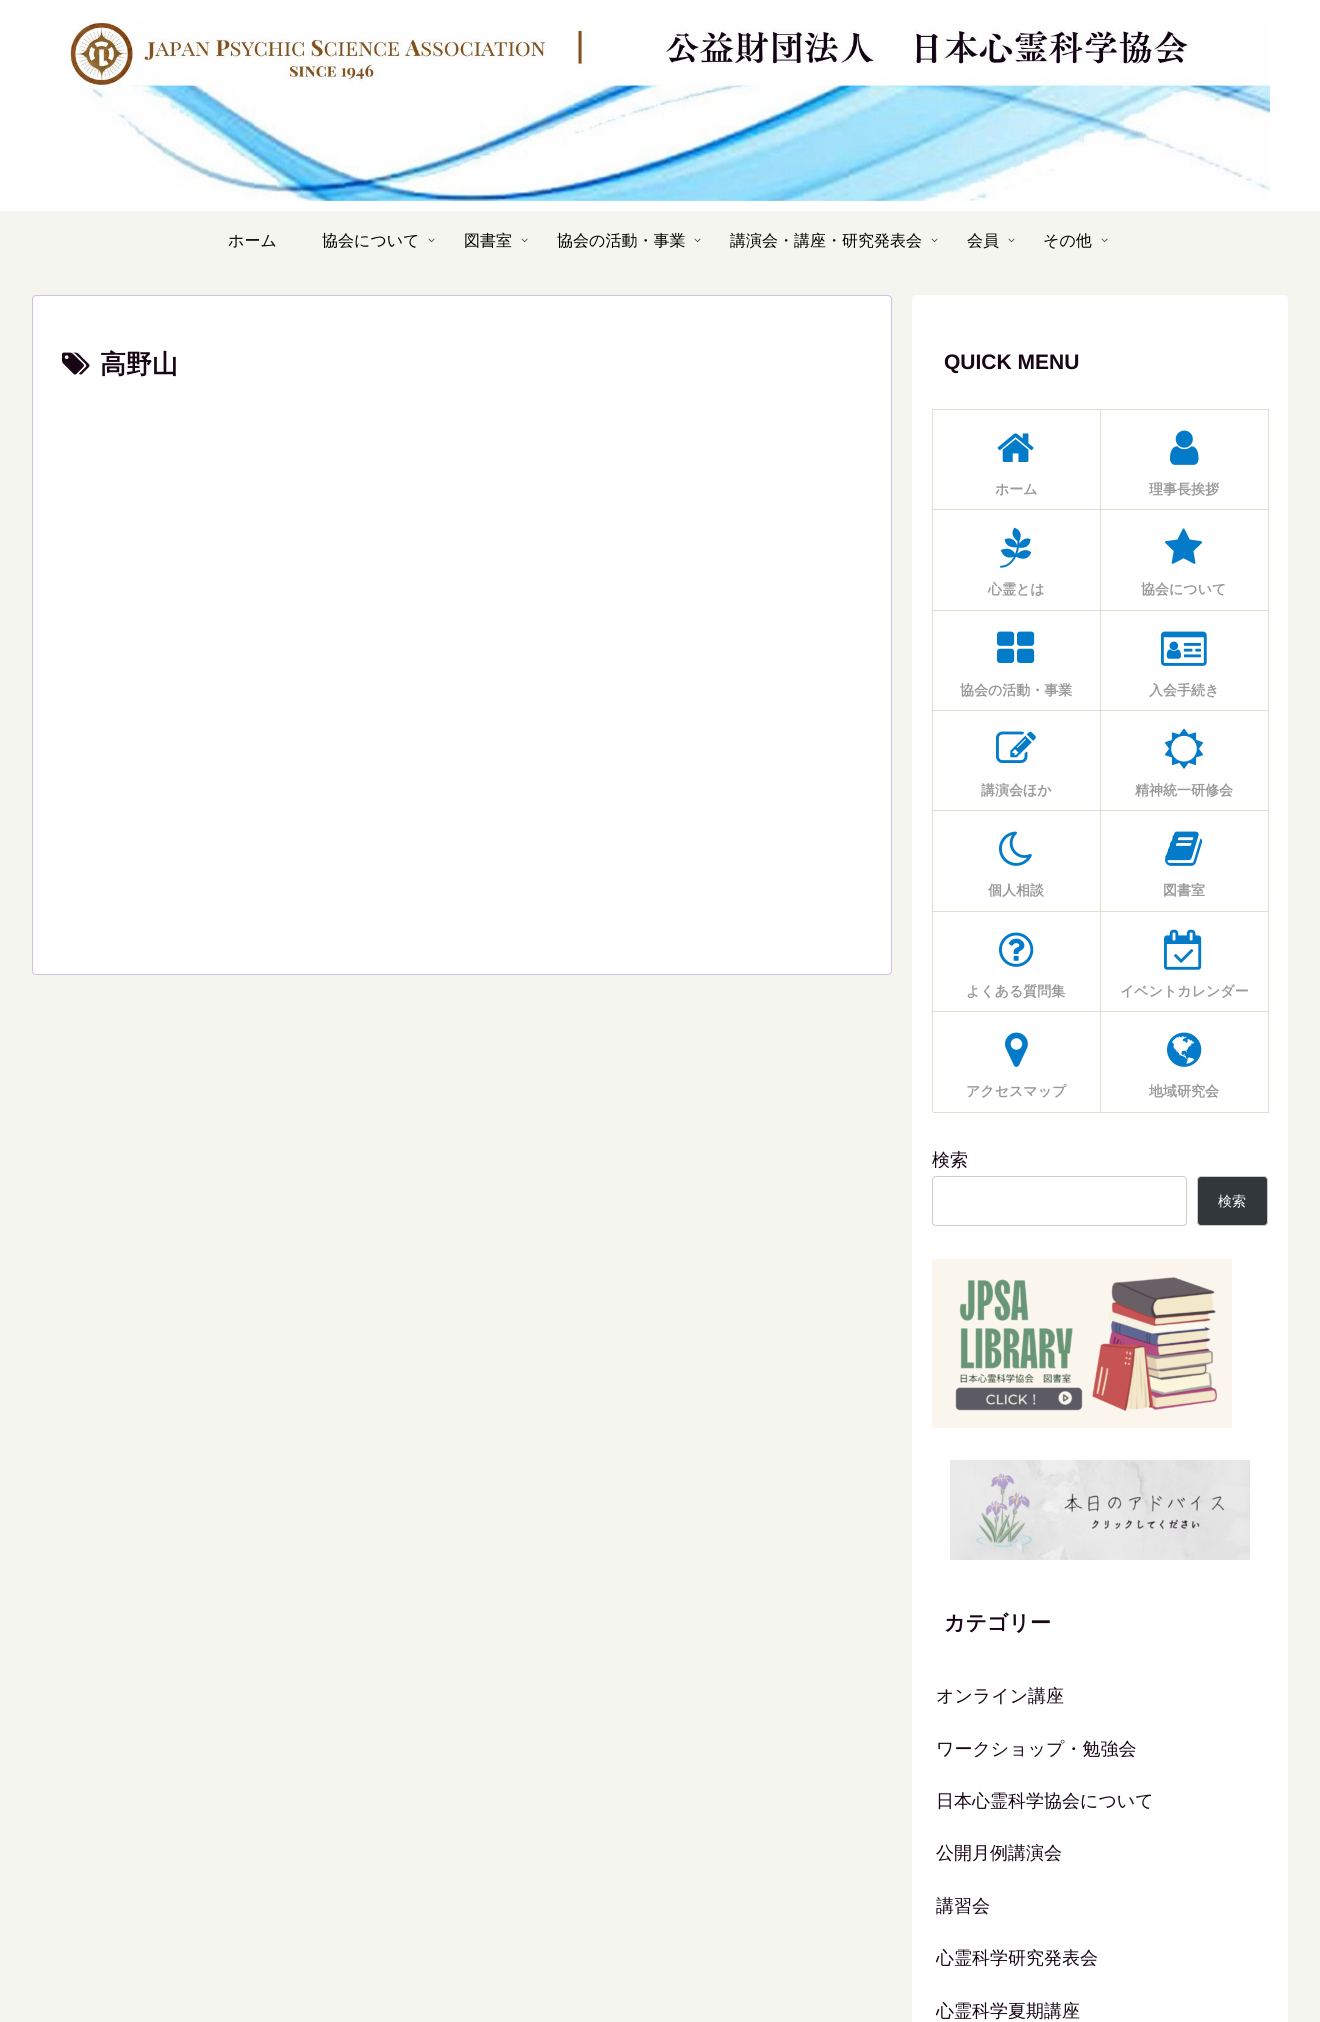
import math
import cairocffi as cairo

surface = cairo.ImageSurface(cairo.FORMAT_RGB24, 1320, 2022)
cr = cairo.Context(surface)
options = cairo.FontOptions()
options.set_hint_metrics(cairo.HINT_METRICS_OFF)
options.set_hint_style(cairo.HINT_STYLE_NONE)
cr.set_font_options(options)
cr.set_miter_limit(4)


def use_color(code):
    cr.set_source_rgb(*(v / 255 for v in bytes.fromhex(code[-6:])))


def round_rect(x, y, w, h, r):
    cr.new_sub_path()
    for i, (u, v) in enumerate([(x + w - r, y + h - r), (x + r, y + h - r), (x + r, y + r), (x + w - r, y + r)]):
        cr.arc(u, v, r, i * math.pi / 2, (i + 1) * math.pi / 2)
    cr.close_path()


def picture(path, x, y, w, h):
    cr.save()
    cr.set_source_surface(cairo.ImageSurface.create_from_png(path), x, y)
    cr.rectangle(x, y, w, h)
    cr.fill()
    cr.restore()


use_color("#f5f5ef")
cr.paint()
use_color("#ffffff")
cr.rectangle(0, 0, 1320, 211)
cr.fill()
picture("img1.png", 69, 20, 1201, 181)
cr.select_font_face("WenQuanYi Zen Hei Medium")
cr.set_font_size(16)
use_color("#000000")
cr.move_to(228, 246)
cr.show_text("ホーム")
cr.move_to(322, 246)
cr.show_text("協会について")
picture("img2.png", 428, 238, 7, 5)
cr.move_to(464, 246)
cr.show_text("図書室")
picture("img2.png", 521, 238, 7, 5)
cr.move_to(557, 246)
cr.show_text("協会の活動・事業")
picture("img2.png", 694, 238, 7, 5)
cr.move_to(730, 246)
cr.show_text("講演会・講座・研究発表会")
picture("img2.png", 931, 238, 7, 5)
cr.move_to(967, 246)
cr.show_text("会員")
picture("img2.png", 1008, 238, 7, 5)
cr.move_to(1043, 246)
cr.show_text("その他")
picture("img2.png", 1101, 238, 7, 5)
use_color("#ffffff")
round_rect(32.5, 295.5, 859, 679, 3.5)
cr.fill_preserve()
use_color("#d1c0e2")
cr.set_line_width(1)
cr.stroke()
picture("img3.png", 62, 352, 28, 23)
cr.select_font_face("WenQuanYi Zen Hei", cairo.FONT_SLANT_NORMAL, cairo.FONT_WEIGHT_BOLD)
cr.set_font_size(26)
use_color("#180614")
cr.move_to(100, 373)
cr.show_text("高野山")
use_color("#ffffff")
round_rect(912, 295, 376, 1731, 4)
cr.fill()
cr.select_font_face("Liberation Sans", cairo.FONT_SLANT_NORMAL, cairo.FONT_WEIGHT_BOLD)
cr.set_font_size(21)
use_color("#180614")
cr.move_to(944, 369)
cr.show_text("QUICK MENU")
cr.save()
cr.rectangle(932, 409, 168, 100)
cr.clip()
use_color("#e0ddd1")
cr.set_fill_rule(cairo.FILL_RULE_EVEN_ODD)
cr.new_path()
cr.move_to(833, 310)
cr.line_to(1199, 310)
cr.line_to(1199, 608)
cr.line_to(833, 608)
cr.close_path()
cr.move_to(933, 410)
cr.line_to(1101, 410)
cr.line_to(1101, 510)
cr.line_to(933, 510)
cr.close_path()
cr.fill()
cr.restore()
picture("img4.png", 997, 433, 37, 29)
cr.select_font_face("WenQuanYi Zen Hei", cairo.FONT_SLANT_NORMAL, cairo.FONT_WEIGHT_BOLD)
cr.set_font_size(14)
use_color("#999999")
cr.move_to(995, 494)
cr.show_text("ホーム")
use_color("#e0ddd1")
cr.rectangle(1268, 409, 1, 1)
cr.fill()
cr.new_path()
cr.move_to(1101, 509)
cr.line_to(1101, 510)
cr.line_to(1269, 510)
cr.line_to(1269, 410)
cr.line_to(1268, 410)
cr.line_to(1268, 509)
cr.close_path()
cr.fill()
cr.save()
cr.rectangle(1100, 409, 168, 100)
cr.clip()
cr.set_fill_rule(cairo.FILL_RULE_EVEN_ODD)
cr.new_path()
cr.move_to(1001, 310)
cr.line_to(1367, 310)
cr.line_to(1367, 608)
cr.line_to(1001, 608)
cr.close_path()
cr.move_to(1101, 410)
cr.line_to(1269, 410)
cr.line_to(1269, 510)
cr.line_to(1101, 510)
cr.close_path()
cr.fill()
cr.restore()
picture("img5.png", 1170, 430, 29, 35)
use_color("#999999")
cr.move_to(1149, 494)
cr.show_text("理事長挨拶")
cr.save()
cr.rectangle(932, 509, 168, 101)
cr.clip()
use_color("#e0ddd1")
cr.set_fill_rule(cairo.FILL_RULE_EVEN_ODD)
cr.new_path()
cr.move_to(833, 410)
cr.line_to(1199, 410)
cr.line_to(1199, 709)
cr.line_to(833, 709)
cr.close_path()
cr.move_to(933, 510)
cr.line_to(1101, 510)
cr.line_to(1101, 611)
cr.line_to(933, 611)
cr.close_path()
cr.fill()
cr.restore()
picture("img6.png", 1000, 527, 32, 41)
cr.move_to(988, 594)
cr.show_text("心霊とは")
use_color("#e0ddd1")
cr.new_path()
cr.move_to(1101, 610)
cr.line_to(1101, 611)
cr.line_to(1269, 611)
cr.line_to(1269, 510)
cr.line_to(1268, 510)
cr.line_to(1268, 610)
cr.close_path()
cr.fill()
cr.save()
cr.rectangle(1100, 509, 168, 101)
cr.clip()
cr.set_fill_rule(cairo.FILL_RULE_EVEN_ODD)
cr.new_path()
cr.move_to(1001, 410)
cr.line_to(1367, 410)
cr.line_to(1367, 709)
cr.line_to(1001, 709)
cr.close_path()
cr.move_to(1101, 510)
cr.line_to(1269, 510)
cr.line_to(1269, 611)
cr.line_to(1101, 611)
cr.close_path()
cr.fill()
cr.restore()
picture("img7.png", 1165, 528, 38, 36)
use_color("#999999")
cr.move_to(1141, 594)
cr.show_text("協会について")
cr.save()
cr.rectangle(932, 610, 168, 100)
cr.clip()
use_color("#e0ddd1")
cr.set_fill_rule(cairo.FILL_RULE_EVEN_ODD)
cr.new_path()
cr.move_to(833, 511)
cr.line_to(1199, 511)
cr.line_to(1199, 809)
cr.line_to(833, 809)
cr.close_path()
cr.move_to(933, 611)
cr.line_to(1101, 611)
cr.line_to(1101, 711)
cr.line_to(933, 711)
cr.close_path()
cr.fill()
cr.restore()
picture("img8.png", 997, 631, 38, 32)
cr.move_to(960, 695)
cr.show_text("協会の活動・事業")
use_color("#e0ddd1")
cr.new_path()
cr.move_to(1101, 710)
cr.line_to(1101, 711)
cr.line_to(1269, 711)
cr.line_to(1269, 611)
cr.line_to(1268, 611)
cr.line_to(1268, 710)
cr.close_path()
cr.fill()
cr.save()
cr.rectangle(1100, 610, 168, 100)
cr.clip()
cr.set_fill_rule(cairo.FILL_RULE_EVEN_ODD)
cr.new_path()
cr.move_to(1001, 511)
cr.line_to(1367, 511)
cr.line_to(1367, 809)
cr.line_to(1001, 809)
cr.close_path()
cr.move_to(1101, 611)
cr.line_to(1269, 611)
cr.line_to(1269, 711)
cr.line_to(1101, 711)
cr.close_path()
cr.fill()
cr.restore()
picture("img9.png", 1161, 631, 46, 35)
use_color("#999999")
cr.move_to(1149, 695)
cr.show_text("入会手続き")
cr.save()
cr.rectangle(932, 710, 168, 100)
cr.clip()
use_color("#e0ddd1")
cr.set_fill_rule(cairo.FILL_RULE_EVEN_ODD)
cr.new_path()
cr.move_to(833, 611)
cr.line_to(1199, 611)
cr.line_to(1199, 909)
cr.line_to(833, 909)
cr.close_path()
cr.move_to(933, 711)
cr.line_to(1101, 711)
cr.line_to(1101, 811)
cr.line_to(933, 811)
cr.close_path()
cr.fill()
cr.restore()
picture("img10.png", 996, 731, 40, 32)
cr.move_to(981, 795)
cr.show_text("講演会ほか")
use_color("#e0ddd1")
cr.new_path()
cr.move_to(1101, 810)
cr.line_to(1101, 811)
cr.line_to(1269, 811)
cr.line_to(1269, 711)
cr.line_to(1268, 711)
cr.line_to(1268, 810)
cr.close_path()
cr.fill()
cr.save()
cr.rectangle(1100, 710, 168, 100)
cr.clip()
cr.set_fill_rule(cairo.FILL_RULE_EVEN_ODD)
cr.new_path()
cr.move_to(1001, 611)
cr.line_to(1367, 611)
cr.line_to(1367, 909)
cr.line_to(1001, 909)
cr.close_path()
cr.move_to(1101, 711)
cr.line_to(1269, 711)
cr.line_to(1269, 811)
cr.line_to(1101, 811)
cr.close_path()
cr.fill()
cr.restore()
picture("img11.png", 1165, 728, 38, 41)
use_color("#999999")
cr.move_to(1135, 795)
cr.show_text("精神統一研修会")
cr.save()
cr.rectangle(932, 810, 168, 101)
cr.clip()
use_color("#e0ddd1")
cr.set_fill_rule(cairo.FILL_RULE_EVEN_ODD)
cr.new_path()
cr.move_to(833, 711)
cr.line_to(1199, 711)
cr.line_to(1199, 1010)
cr.line_to(833, 1010)
cr.close_path()
cr.move_to(933, 811)
cr.line_to(1101, 811)
cr.line_to(1101, 912)
cr.line_to(933, 912)
cr.close_path()
cr.fill()
cr.restore()
picture("img12.png", 999, 831, 33, 35)
cr.move_to(988, 895)
cr.show_text("個人相談")
use_color("#e0ddd1")
cr.new_path()
cr.move_to(1101, 911)
cr.line_to(1101, 912)
cr.line_to(1269, 912)
cr.line_to(1269, 811)
cr.line_to(1268, 811)
cr.line_to(1268, 911)
cr.close_path()
cr.fill()
cr.save()
cr.rectangle(1100, 810, 168, 101)
cr.clip()
cr.set_fill_rule(cairo.FILL_RULE_EVEN_ODD)
cr.new_path()
cr.move_to(1001, 711)
cr.line_to(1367, 711)
cr.line_to(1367, 1010)
cr.line_to(1001, 1010)
cr.close_path()
cr.move_to(1101, 811)
cr.line_to(1269, 811)
cr.line_to(1269, 912)
cr.line_to(1101, 912)
cr.close_path()
cr.fill()
cr.restore()
picture("img13.png", 1165, 831, 38, 35)
use_color("#999999")
cr.move_to(1163, 895)
cr.show_text("図書室")
cr.save()
cr.rectangle(932, 911, 168, 100)
cr.clip()
use_color("#e0ddd1")
cr.set_fill_rule(cairo.FILL_RULE_EVEN_ODD)
cr.new_path()
cr.move_to(833, 812)
cr.line_to(1199, 812)
cr.line_to(1199, 1110)
cr.line_to(833, 1110)
cr.close_path()
cr.move_to(933, 912)
cr.line_to(1101, 912)
cr.line_to(1101, 1012)
cr.line_to(933, 1012)
cr.close_path()
cr.fill()
cr.restore()
picture("img14.png", 999, 932, 35, 35)
cr.move_to(966, 996)
cr.show_text("よくある質問集")
use_color("#e0ddd1")
cr.new_path()
cr.move_to(1101, 1011)
cr.line_to(1101, 1012)
cr.line_to(1269, 1012)
cr.line_to(1269, 912)
cr.line_to(1268, 912)
cr.line_to(1268, 1011)
cr.close_path()
cr.fill()
cr.save()
cr.rectangle(1100, 911, 168, 100)
cr.clip()
cr.set_fill_rule(cairo.FILL_RULE_EVEN_ODD)
cr.new_path()
cr.move_to(1001, 812)
cr.line_to(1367, 812)
cr.line_to(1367, 1110)
cr.line_to(1001, 1110)
cr.close_path()
cr.move_to(1101, 912)
cr.line_to(1269, 912)
cr.line_to(1269, 1012)
cr.line_to(1101, 1012)
cr.close_path()
cr.fill()
cr.restore()
picture("img15.png", 1164, 929, 38, 41)
use_color("#999999")
cr.move_to(1120, 996)
cr.show_text("イベントカレンダー")
use_color("#e0ddd1")
cr.new_path()
cr.move_to(933, 1112)
cr.line_to(933, 1113)
cr.line_to(1101, 1113)
cr.line_to(1101, 1012)
cr.line_to(1100, 1012)
cr.line_to(1100, 1112)
cr.close_path()
cr.fill()
cr.save()
cr.rectangle(932, 1011, 168, 101)
cr.clip()
cr.set_fill_rule(cairo.FILL_RULE_EVEN_ODD)
cr.new_path()
cr.move_to(833, 912)
cr.line_to(1199, 912)
cr.line_to(1199, 1211)
cr.line_to(833, 1211)
cr.close_path()
cr.move_to(933, 1012)
cr.line_to(1101, 1012)
cr.line_to(1101, 1113)
cr.line_to(933, 1113)
cr.close_path()
cr.fill()
cr.restore()
picture("img16.png", 1005, 1032, 23, 35)
use_color("#999999")
cr.move_to(966, 1096)
cr.show_text("アクセスマップ")
use_color("#e0ddd1")
cr.new_path()
cr.move_to(1101, 1112)
cr.line_to(1101, 1113)
cr.line_to(1269, 1113)
cr.line_to(1269, 1012)
cr.line_to(1268, 1012)
cr.line_to(1268, 1112)
cr.close_path()
cr.fill()
cr.save()
cr.rectangle(1100, 1011, 168, 101)
cr.clip()
cr.set_fill_rule(cairo.FILL_RULE_EVEN_ODD)
cr.new_path()
cr.move_to(1001, 912)
cr.line_to(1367, 912)
cr.line_to(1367, 1211)
cr.line_to(1001, 1211)
cr.close_path()
cr.move_to(1101, 1012)
cr.line_to(1269, 1012)
cr.line_to(1269, 1113)
cr.line_to(1101, 1113)
cr.close_path()
cr.fill()
cr.restore()
picture("img17.png", 1167, 1032, 35, 35)
use_color("#999999")
cr.move_to(1149, 1096)
cr.show_text("地域研究会")
cr.select_font_face("WenQuanYi Zen Hei Medium")
cr.set_font_size(18)
use_color("#180614")
cr.move_to(932, 1166)
cr.show_text("検索")
round_rect(932.5, 1176.5, 254, 49, 3.5)
use_color("#cccccc")
cr.stroke()
use_color("#32373c")
round_rect(1197.5, 1176.5, 70, 49, 3.5)
cr.fill_preserve()
use_color("#cccccc")
cr.stroke()
cr.set_font_size(14)
use_color("#ffffff")
cr.move_to(1218, 1206)
cr.show_text("検索")
picture("img18.png", 932, 1259, 300, 169)
picture("img19.png", 950, 1460, 300, 100)
cr.select_font_face("WenQuanYi Zen Hei", cairo.FONT_SLANT_NORMAL, cairo.FONT_WEIGHT_BOLD)
cr.set_font_size(21)
use_color("#180614")
cr.move_to(944, 1630)
cr.show_text("カテゴリー")
cr.select_font_face("WenQuanYi Zen Hei Medium")
cr.set_font_size(18)
cr.move_to(936, 1702)
cr.show_text("オンライン講座")
cr.move_to(936, 1755)
cr.show_text("ワークショップ・勉強会")
cr.move_to(936, 1807)
cr.show_text("日本心霊科学協会について")
cr.move_to(936, 1859)
cr.show_text("公開月例講演会")
cr.move_to(936, 1912)
cr.show_text("講習会")
cr.move_to(936, 1964)
cr.show_text("心霊科学研究発表会")
cr.move_to(936, 2017)
cr.show_text("心霊科学夏期講座")
surface.write_to_png("result.png")
